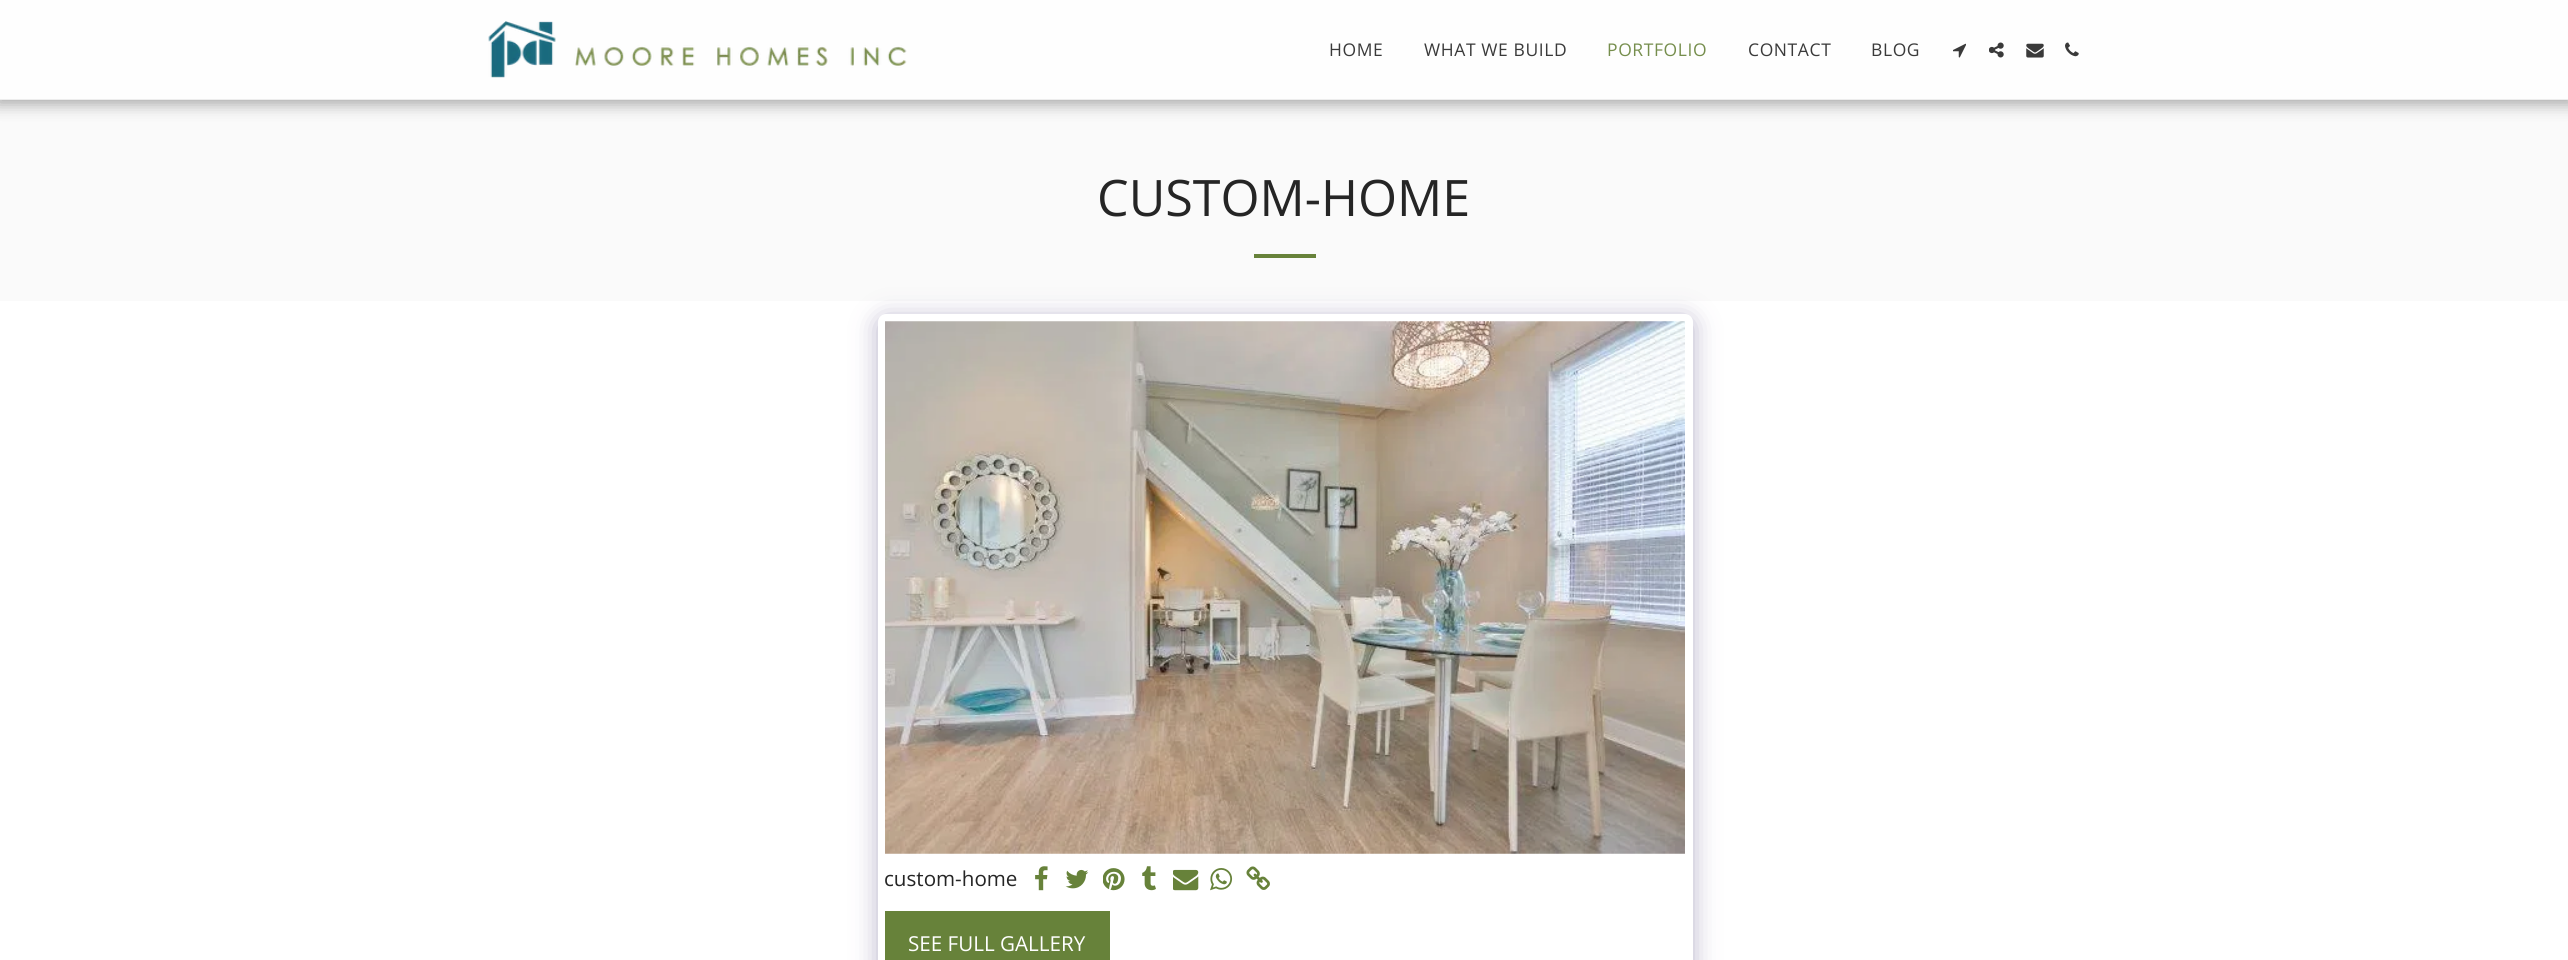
import math
import cairocffi as cairo

surface = cairo.ImageSurface(cairo.FORMAT_RGB24, 2568, 960)
cr = cairo.Context(surface)
options = cairo.FontOptions()
options.set_hint_metrics(cairo.HINT_METRICS_OFF)
options.set_hint_style(cairo.HINT_STYLE_NONE)
cr.set_font_options(options)
cr.set_miter_limit(4)


def use_color(code):
    cr.set_source_rgb(*(v / 255 for v in bytes.fromhex(code[-6:])))


def spaced_text(x, y, s, letter, word):
    cr.move_to(x, y)
    for ch in s:
        cr.show_text(ch)
        cr.rel_move_to(letter + word * (ch == ' '), 0)


def round_rect(x, y, w, h, r):
    cr.new_sub_path()
    for i, (u, v) in enumerate([(x + w - r, y + h - r), (x + r, y + h - r), (x + r, y + r), (x + w - r, y + r)]):
        cr.arc(u, v, r, i * math.pi / 2, (i + 1) * math.pi / 2)
    cr.close_path()


def shadow(x, y, w, h, r, blur, alpha):
    cr.push_group_with_content(cairo.CONTENT_ALPHA)
    cr.set_operator(cairo.OPERATOR_SOURCE)
    for i in range(15, -16, -2):
        e = blur * i / 6
        if min(w, h) + 2 * e > 0:
            cr.set_source_rgba(0, 0, 0, alpha * math.erfc((i - 1) / 8.5) / 2)
            round_rect(x - e, y - e, w + 2 * e, h + 2 * e, max(0, min(r + e + blur * .6, min(w, h) / 2 + e)))
            cr.fill()
    cr.mask(cr.pop_group())


def picture(path, x, y, w, h):
    cr.save()
    cr.set_source_surface(cairo.ImageSurface.create_from_png(path), x, y)
    cr.rectangle(x, y, w, h)
    cr.fill()
    cr.restore()


use_color("#ffffff")
cr.paint()
use_color("#fafafa")
cr.rectangle(0, 100, 2568, 201)
cr.fill()
use_color("#191919")
shadow(-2, 0, 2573, 105, 0, 7.5, 0.35)
use_color("#fefefe")
cr.rectangle(0, 0, 2568, 99)
cr.fill()
use_color("#ededed")
cr.rectangle(0, 99, 2568, 1)
cr.fill()
picture("img1.png", 488, 21, 419, 57)
cr.select_font_face("Open Sans")
cr.set_font_size(17.5)
use_color("#3a3a3a")
spaced_text(1329, 56, "HOME", 0.6, 0)
spaced_text(1424, 56, "WHAT WE BUILD", 0.6, 0)
use_color("#768e4d")
spaced_text(1607, 56, "PORTFOLIO", 0.6, 0)
use_color("#3a3a3a")
spaced_text(1748, 56, "CONTACT", 0.6, 0)
spaced_text(1871, 56, "BLOG", 0.6, 0)
picture("img2.png", 1953, 43, 13, 15)
picture("img3.png", 1989, 42, 15, 16)
picture("img4.png", 2026, 43, 18, 15)
picture("img5.png", 2065, 42, 14, 15)
cr.set_font_size(50.25)
use_color("#252525")
cr.move_to(1097, 216)
cr.show_text("CUSTOM-HOME")
use_color("#67823a")
cr.rectangle(1254, 254, 62, 4)
cr.fill()
use_color("#4d3f7a")
shadow(878, 318, 815, 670, 8, 12.5, 0.4)
use_color("#ffffff")
round_rect(878, 314, 815, 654, 8)
cr.fill()
picture("img6.png", 885, 321, 800, 533)
cr.set_font_size(20.6)
use_color("#252525")
cr.move_to(884, 886)
cr.show_text("custom-home")
picture("img7.png", 1035, 866, 13, 25)
picture("img8.png", 1065, 869, 24, 20)
picture("img9.png", 1103, 868, 22, 23)
picture("img10.png", 1142, 866, 14, 25)
picture("img11.png", 1173, 869, 26, 22)
picture("img12.png", 1210, 868, 23, 23)
picture("img13.png", 1246, 866, 24, 24)
use_color("#67823a")
cr.rectangle(885, 911, 225, 49)
cr.fill()
use_color("#ffffff")
cr.move_to(908, 951)
cr.show_text("SEE FULL GALLERY")
surface.write_to_png("result.png")
